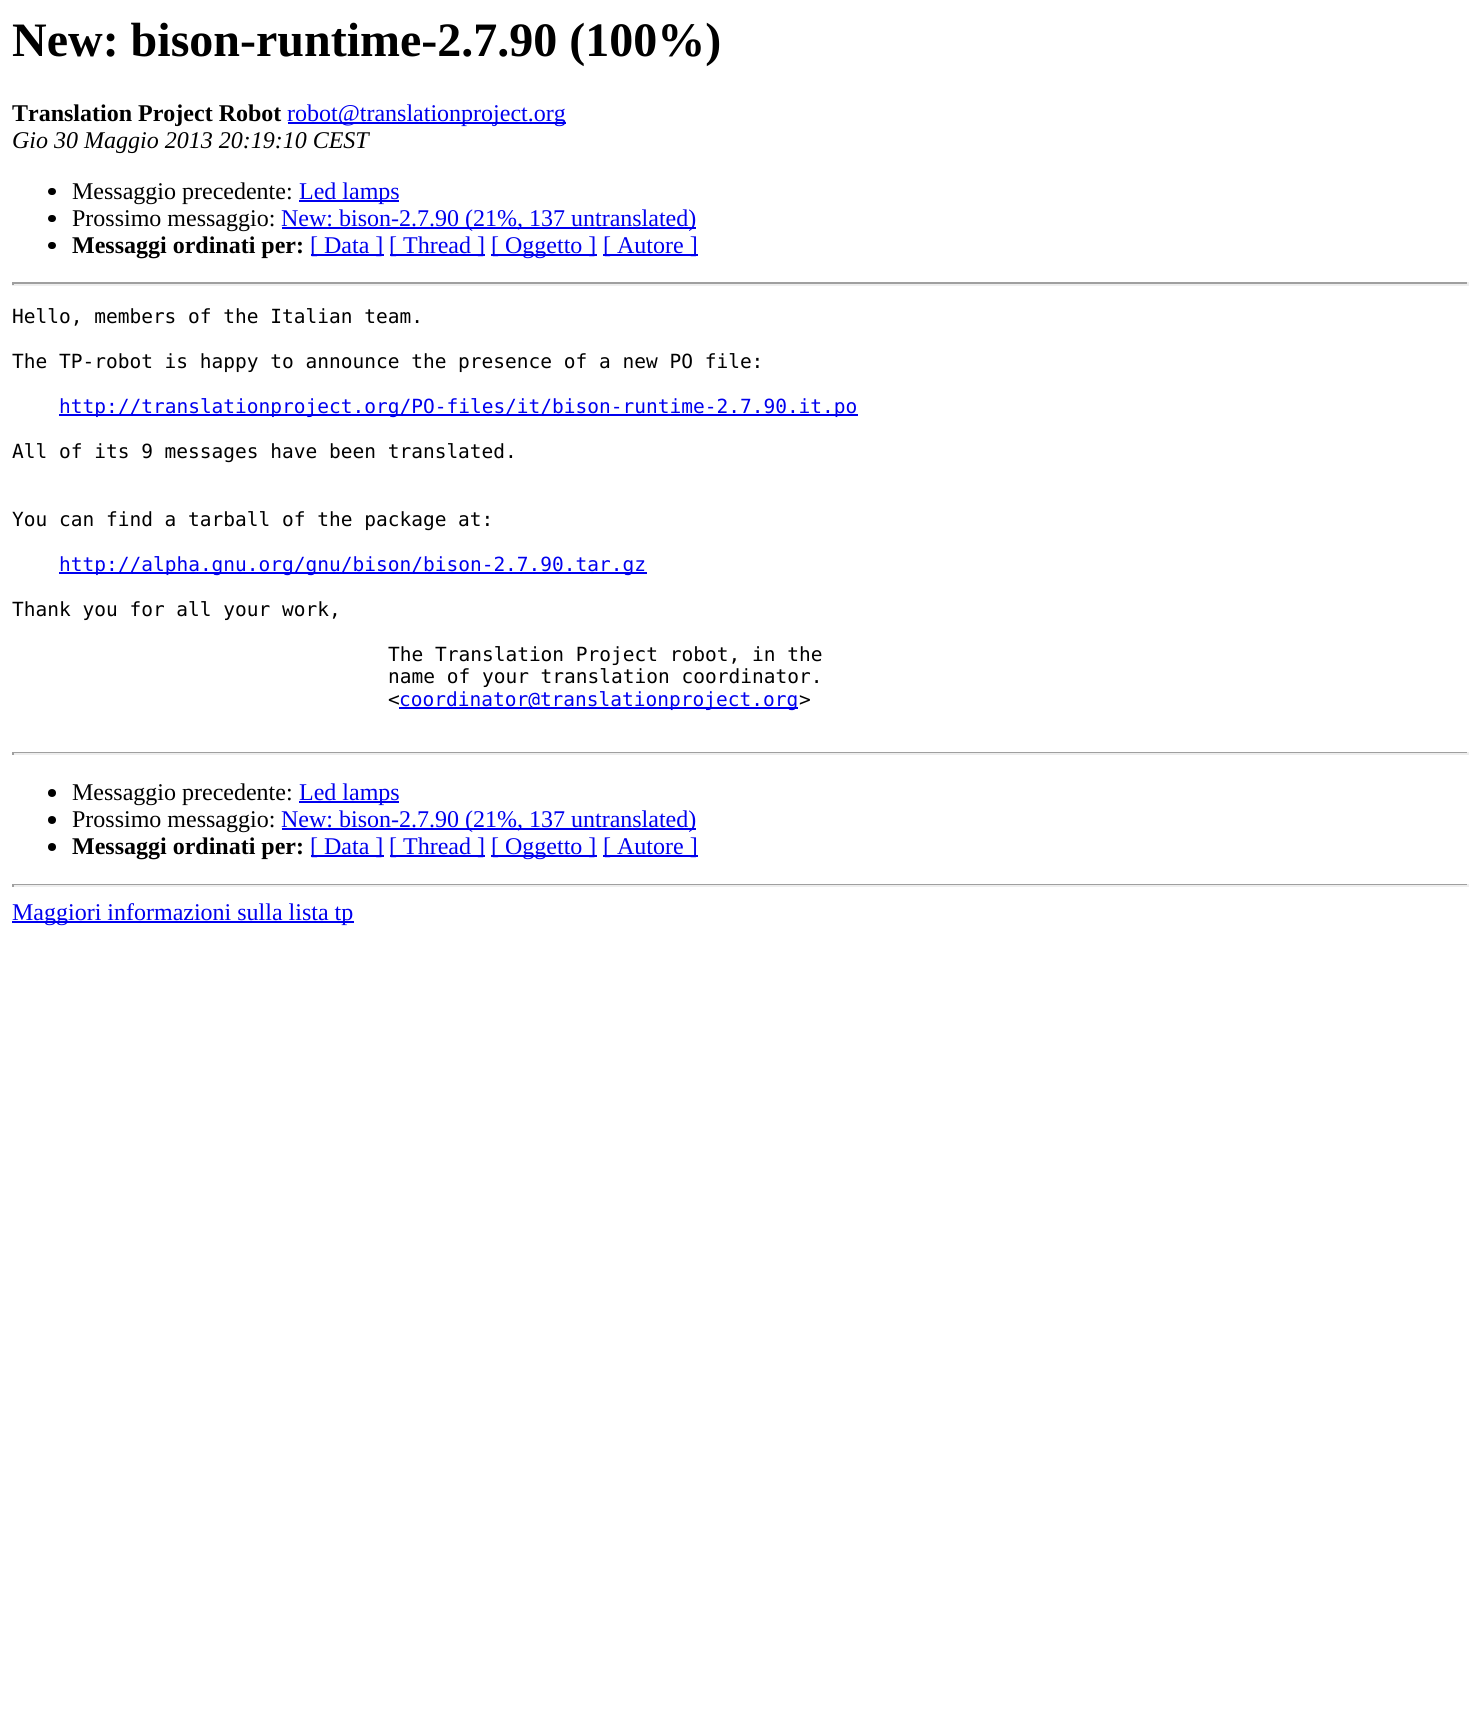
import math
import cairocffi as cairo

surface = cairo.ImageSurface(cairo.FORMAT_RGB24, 1480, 1715)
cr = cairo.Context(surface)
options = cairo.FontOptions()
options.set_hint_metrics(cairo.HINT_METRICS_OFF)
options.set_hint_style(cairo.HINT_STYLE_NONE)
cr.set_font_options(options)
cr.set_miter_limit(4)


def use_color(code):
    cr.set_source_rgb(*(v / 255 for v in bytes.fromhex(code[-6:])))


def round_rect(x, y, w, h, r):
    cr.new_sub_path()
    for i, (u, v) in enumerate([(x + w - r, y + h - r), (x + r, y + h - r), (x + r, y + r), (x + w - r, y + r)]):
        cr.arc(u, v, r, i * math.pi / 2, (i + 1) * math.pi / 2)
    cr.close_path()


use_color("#ffffff")
cr.paint()
cr.select_font_face("Liberation Serif", cairo.FONT_SLANT_NORMAL, cairo.FONT_WEIGHT_BOLD)
cr.set_font_size(48)
use_color("#000000")
cr.move_to(12, 56)
cr.show_text("New: bison-runtime-2.7.90 (100%)")
cr.set_font_size(24)
cr.move_to(12, 121)
cr.show_text("Translation Project Robot")
use_color("#0000ee")
cr.rectangle(288, 122, 278, 2)
cr.fill()
cr.select_font_face("Liberation Serif")
cr.move_to(287, 121)
cr.show_text("robot@translationproject.org")
cr.select_font_face("Liberation Serif", cairo.FONT_SLANT_ITALIC)
use_color("#000000")
cr.move_to(12, 148)
cr.show_text("Gio 30 Maggio 2013 20:19:10 CEST")
round_rect(48, 188, 8, 7, 3.5)
cr.fill()
cr.select_font_face("Liberation Serif")
cr.move_to(72, 199)
cr.show_text("Messaggio precedente:")
use_color("#0000ee")
cr.rectangle(299, 200, 100, 2)
cr.fill()
cr.move_to(299, 199)
cr.show_text("Led lamps")
use_color("#000000")
round_rect(48, 215, 8, 7, 3.5)
cr.fill()
cr.move_to(72, 226)
cr.show_text("Prossimo messaggio:")
use_color("#0000ee")
cr.rectangle(282, 227, 414, 2)
cr.fill()
cr.move_to(281, 226)
cr.show_text("New: bison-2.7.90 (21%, 137 untranslated)")
use_color("#000000")
round_rect(48, 242, 8, 7, 3.5)
cr.fill()
cr.select_font_face("Liberation Serif", cairo.FONT_SLANT_NORMAL, cairo.FONT_WEIGHT_BOLD)
cr.move_to(72, 253)
cr.show_text("Messaggi ordinati per:")
use_color("#0000ee")
cr.rectangle(311, 254, 73, 2)
cr.fill()
cr.select_font_face("Liberation Serif")
cr.move_to(310, 253)
cr.show_text("[ Data ]")
cr.rectangle(390, 254, 95, 2)
cr.fill()
cr.move_to(389, 253)
cr.show_text("[ Thread ]")
cr.rectangle(491, 254, 106, 2)
cr.fill()
cr.move_to(491, 253)
cr.show_text("[ Oggetto ]")
cr.rectangle(603, 254, 95, 2)
cr.fill()
cr.move_to(603, 253)
cr.show_text("[ Autore ]")
use_color("#9f9f9f")
cr.rectangle(12, 282, 1457, 2)
cr.fill()
use_color("#eeeeee")
cr.rectangle(1467, 282, 2, 3)
cr.fill()
cr.rectangle(12, 284, 1457, 2)
cr.fill()
use_color("#9f9f9f")
cr.rectangle(12, 282, 2, 3)
cr.fill()
cr.select_font_face("DejaVu Sans Mono")
cr.set_font_size(19.5)
use_color("#000000")
cr.move_to(12, 323)
cr.show_text("Hello, members of the Italian team.")
cr.move_to(12, 368)
cr.show_text("The TP-robot is happy to announce the presence of a new PO file:")
use_color("#0000ee")
cr.rectangle(59, 414, 799, 2)
cr.fill()
cr.move_to(59, 413)
cr.show_text("http://translationproject.org/PO-files/it/bison-runtime-2.7.90.it.po")
use_color("#000000")
cr.move_to(12, 458)
cr.show_text("All of its 9 messages have been translated.")
cr.move_to(12, 526)
cr.show_text("You can find a tarball of the package at:")
use_color("#0000ee")
cr.rectangle(59, 572, 588, 2)
cr.fill()
cr.move_to(59, 571)
cr.show_text("http://alpha.gnu.org/gnu/bison/bison-2.7.90.tar.gz")
use_color("#000000")
cr.move_to(12, 616)
cr.show_text("Thank you for all your work,")
cr.move_to(388, 661)
cr.show_text("The Translation Project robot, in the")
cr.move_to(388, 683)
cr.show_text("name of your translation coordinator.")
cr.move_to(388, 706)
cr.show_text("<")
use_color("#0000ee")
cr.rectangle(399, 707, 399, 2)
cr.fill()
cr.move_to(399, 706)
cr.show_text("coordinator@translationproject.org")
use_color("#000000")
cr.move_to(799, 706)
cr.show_text(">")
use_color("#9f9f9f")
cr.rectangle(12, 752, 1457, 1)
cr.fill()
use_color("#eeeeee")
cr.rectangle(1467, 752, 2, 3)
cr.fill()
cr.rectangle(12, 753, 1457, 2)
cr.fill()
use_color("#9f9f9f")
cr.rectangle(12, 752, 2, 3)
cr.fill()
use_color("#000000")
cr.arc(52, 793, 4, 0, 2 * math.pi)
cr.fill()
cr.select_font_face("Liberation Serif")
cr.set_font_size(24)
cr.move_to(72, 800)
cr.show_text("Messaggio precedente:")
use_color("#0000ee")
cr.rectangle(299, 801, 100, 2)
cr.fill()
cr.move_to(299, 800)
cr.show_text("Led lamps")
use_color("#000000")
cr.new_path()
cr.arc(52, 820, 4, 0, 2 * math.pi)
cr.fill()
cr.move_to(72, 827)
cr.show_text("Prossimo messaggio:")
use_color("#0000ee")
cr.rectangle(282, 828, 414, 2)
cr.fill()
cr.move_to(281, 827)
cr.show_text("New: bison-2.7.90 (21%, 137 untranslated)")
use_color("#000000")
cr.new_path()
cr.arc(52, 847, 4, 0, 2 * math.pi)
cr.fill()
cr.select_font_face("Liberation Serif", cairo.FONT_SLANT_NORMAL, cairo.FONT_WEIGHT_BOLD)
cr.move_to(72, 854)
cr.show_text("Messaggi ordinati per:")
use_color("#0000ee")
cr.rectangle(311, 855, 73, 2)
cr.fill()
cr.select_font_face("Liberation Serif")
cr.move_to(310, 854)
cr.show_text("[ Data ]")
cr.rectangle(390, 855, 95, 2)
cr.fill()
cr.move_to(389, 854)
cr.show_text("[ Thread ]")
cr.rectangle(491, 855, 106, 2)
cr.fill()
cr.move_to(491, 854)
cr.show_text("[ Oggetto ]")
cr.rectangle(603, 855, 95, 2)
cr.fill()
cr.move_to(603, 854)
cr.show_text("[ Autore ]")
use_color("#9f9f9f")
cr.rectangle(12, 884, 1457, 1)
cr.fill()
use_color("#eeeeee")
cr.rectangle(1467, 884, 2, 3)
cr.fill()
cr.rectangle(12, 885, 1457, 2)
cr.fill()
use_color("#9f9f9f")
cr.rectangle(12, 884, 2, 3)
cr.fill()
use_color("#0000ee")
cr.rectangle(12, 921, 342, 2)
cr.fill()
cr.move_to(12, 920)
cr.show_text("Maggiori informazioni sulla lista tp")
surface.write_to_png("result.png")
